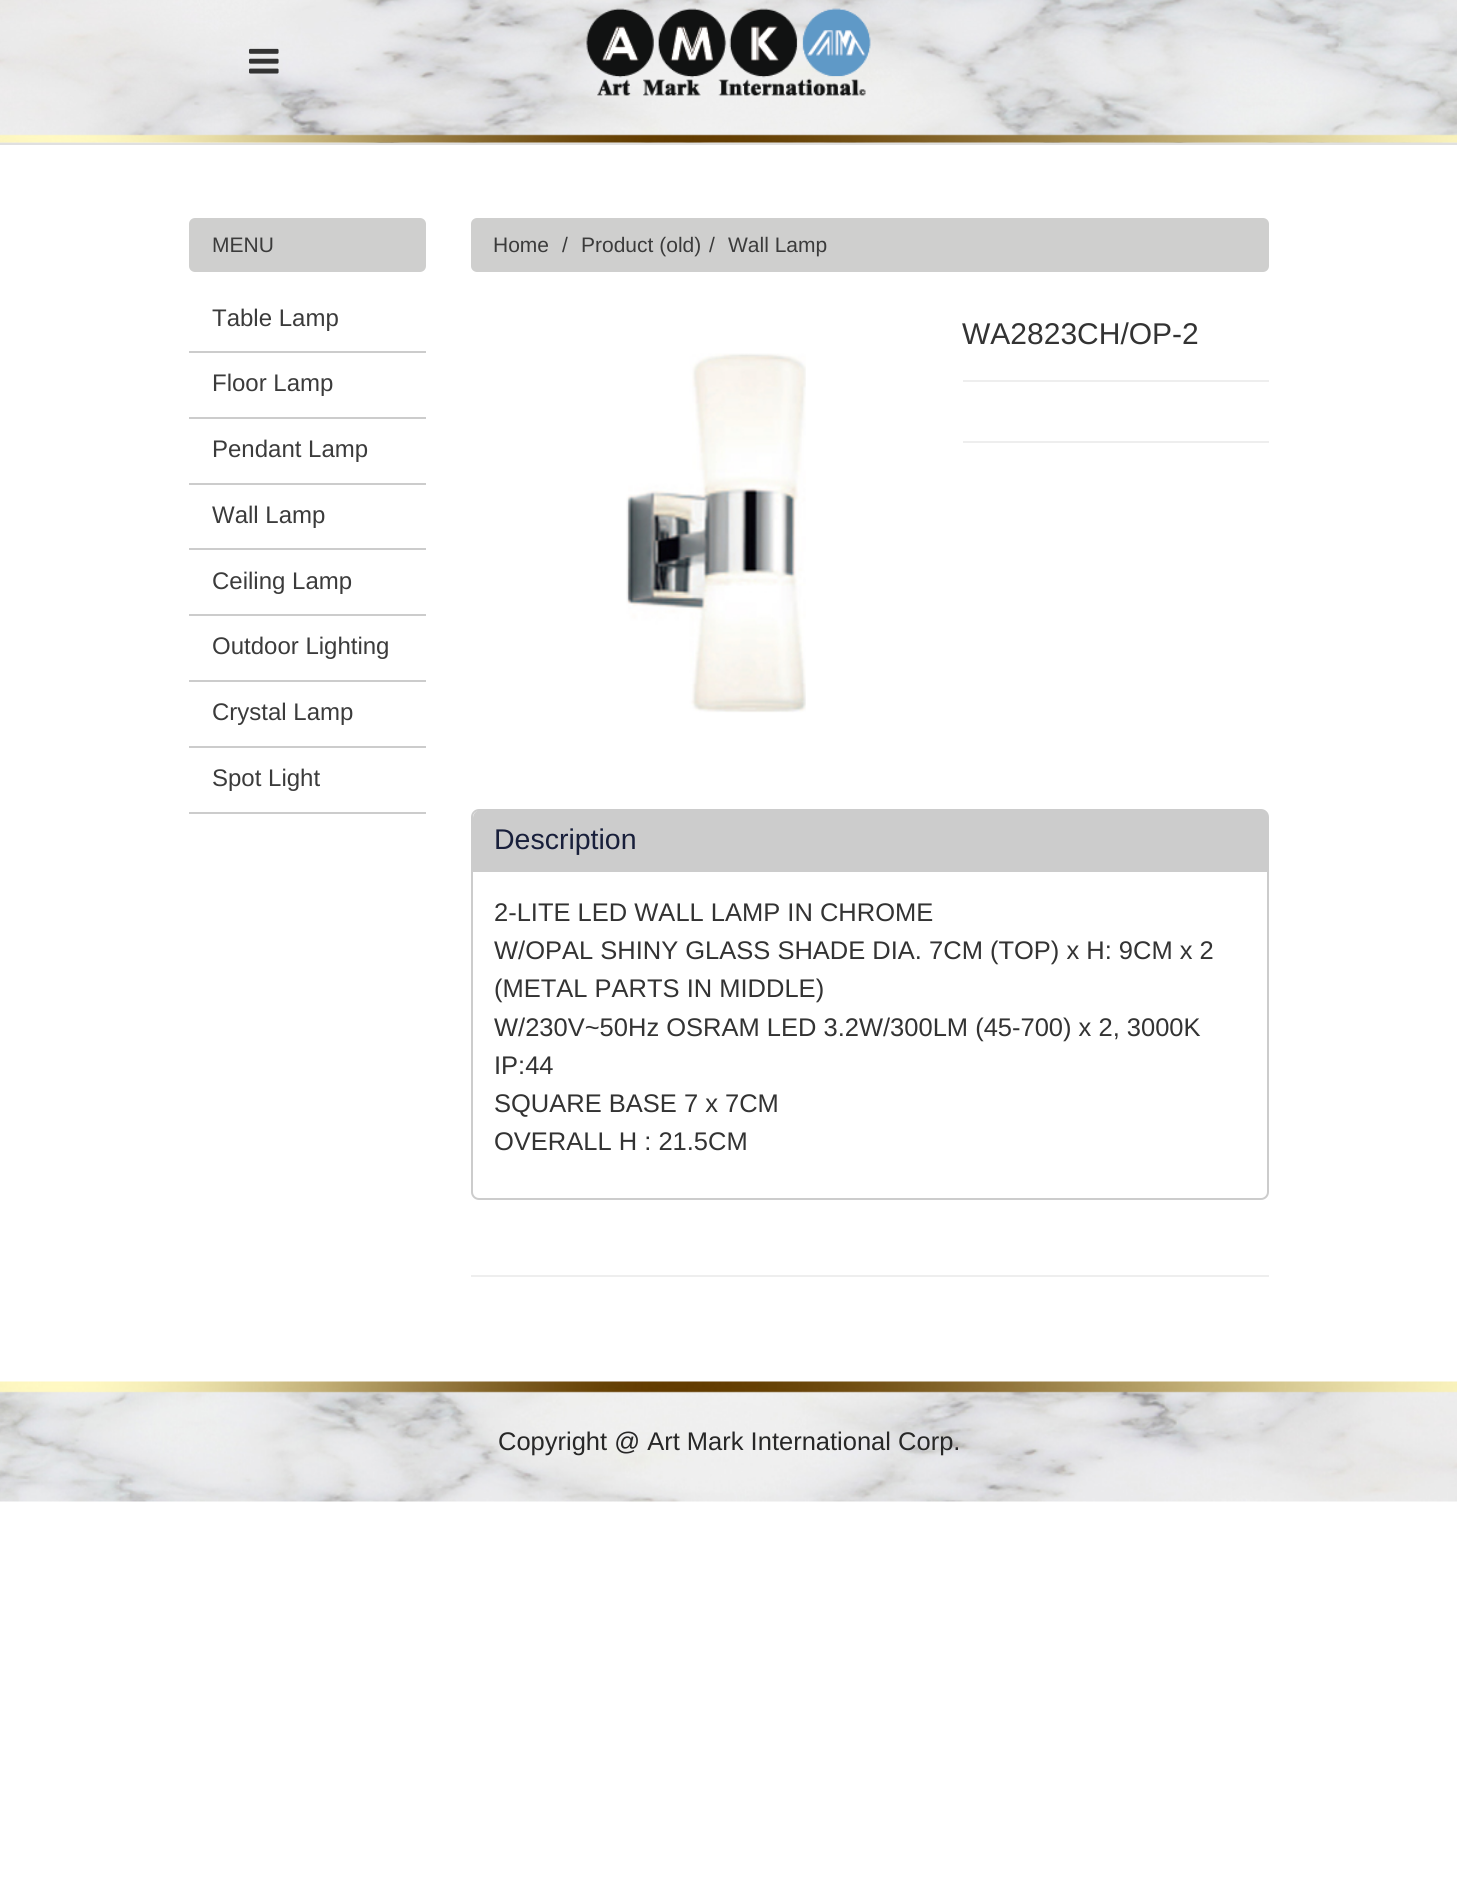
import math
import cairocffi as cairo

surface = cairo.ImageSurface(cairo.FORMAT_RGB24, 1457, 1898)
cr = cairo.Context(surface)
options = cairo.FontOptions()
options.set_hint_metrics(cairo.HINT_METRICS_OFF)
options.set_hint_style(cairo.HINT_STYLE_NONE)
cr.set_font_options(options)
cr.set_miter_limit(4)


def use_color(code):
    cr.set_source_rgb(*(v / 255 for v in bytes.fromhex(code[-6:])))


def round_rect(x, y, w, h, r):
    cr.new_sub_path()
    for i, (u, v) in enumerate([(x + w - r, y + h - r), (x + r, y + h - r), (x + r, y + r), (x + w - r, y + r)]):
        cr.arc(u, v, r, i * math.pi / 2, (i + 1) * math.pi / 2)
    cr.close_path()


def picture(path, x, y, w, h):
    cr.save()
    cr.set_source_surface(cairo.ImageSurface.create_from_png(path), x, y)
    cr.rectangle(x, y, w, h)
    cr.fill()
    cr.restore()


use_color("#ffffff")
cr.paint()
picture("img1.png", 0, 0, 1457, 143)
use_color("#e0e0e0")
cr.rectangle(0, 143, 1457, 2)
cr.fill()
picture("img2.png", 249, 48, 30, 26)
picture("img3.png", 586, 8, 285, 88)
use_color("#cfcfce")
round_rect(189, 218, 237, 54, 6)
cr.fill()
cr.select_font_face("Liberation Sans")
cr.set_font_size(21)
use_color("#3b3b3b")
cr.move_to(212, 252)
cr.show_text("MENU")
use_color("#cccccc")
cr.rectangle(189, 351, 237, 2)
cr.fill()
cr.set_font_size(24)
use_color("#3b3b3b")
cr.move_to(212, 326)
cr.show_text("Table Lamp")
use_color("#cccccc")
cr.rectangle(189, 417, 237, 2)
cr.fill()
use_color("#3b3b3b")
cr.move_to(212, 391)
cr.show_text("Floor Lamp")
use_color("#cccccc")
cr.rectangle(189, 483, 237, 2)
cr.fill()
use_color("#3b3b3b")
cr.move_to(212, 457)
cr.show_text("Pendant Lamp")
use_color("#cccccc")
cr.rectangle(189, 548, 237, 2)
cr.fill()
use_color("#3b3b3b")
cr.move_to(212, 523)
cr.show_text("Wall Lamp")
use_color("#cccccc")
cr.rectangle(189, 614, 237, 2)
cr.fill()
use_color("#3b3b3b")
cr.move_to(212, 589)
cr.show_text("Ceiling Lamp")
use_color("#cccccc")
cr.rectangle(189, 680, 237, 2)
cr.fill()
use_color("#3b3b3b")
cr.move_to(212, 654)
cr.show_text("Outdoor Lighting")
use_color("#cccccc")
cr.rectangle(189, 746, 237, 2)
cr.fill()
use_color("#3b3b3b")
cr.move_to(212, 720)
cr.show_text("Crystal Lamp")
use_color("#cccccc")
cr.rectangle(189, 812, 237, 2)
cr.fill()
use_color("#3b3b3b")
cr.move_to(212, 786)
cr.show_text("Spot Light")
use_color("#cfcfce")
round_rect(471, 218, 798, 54, 6)
cr.fill()
cr.set_font_size(21)
use_color("#3b3b3b")
cr.move_to(493, 252)
cr.show_text("Home")
cr.move_to(562, 252)
cr.show_text("/")
cr.move_to(581, 252)
cr.show_text("Product (old)")
cr.move_to(709, 252)
cr.show_text("/")
cr.move_to(728, 252)
cr.show_text("Wall Lamp")
cr.set_font_size(30)
use_color("#333333")
cr.move_to(962, 344)
cr.show_text("WA2823CH/OP-2")
use_color("#eeeeee")
cr.rectangle(963, 380, 306, 2)
cr.fill()
cr.rectangle(963, 441, 306, 2)
cr.fill()
picture("img4.png", 626, 353, 180, 360)
round_rect(472, 810, 796, 389, 7)
use_color("#cccccc")
cr.stroke()
cr.new_path()
cr.move_to(481, 810)
cr.line_to(1260, 810)
cr.curve_to(1264.5, 810, 1268, 813.5, 1268, 818)
cr.line_to(1268, 872)
cr.line_to(473, 872)
cr.line_to(473, 818)
cr.curve_to(473, 813.5, 476.5, 810, 481, 810)
cr.close_path()
cr.fill()
cr.set_font_size(28.5)
use_color("#181f3b")
cr.move_to(494, 849)
cr.show_text("Description")
cr.set_font_size(25.5)
use_color("#333333")
cr.move_to(494, 921)
cr.show_text("2-LITE LED WALL LAMP IN CHROME")
cr.move_to(494, 959)
cr.show_text("W/OPAL SHINY GLASS SHADE DIA. 7CM (TOP) x H: 9CM x 2")
cr.move_to(494, 997)
cr.show_text("(METAL PARTS IN MIDDLE)")
cr.move_to(494, 1036)
cr.show_text("W/230V~50Hz OSRAM LED 3.2W/300LM (45-700) x 2, 3000K")
cr.move_to(494, 1074)
cr.show_text("IP:44")
cr.move_to(494, 1112)
cr.show_text("SQUARE BASE 7 x 7CM")
cr.move_to(494, 1150)
cr.show_text("OVERALL H : 21.5CM")
use_color("#eeeeee")
cr.rectangle(471, 1275, 798, 2)
cr.fill()
picture("img5.png", 0, 1381, 1457, 121)
use_color("#272727")
cr.move_to(498, 1450)
cr.show_text("Copyright @ Art Mark International Corp.")
surface.write_to_png("result.png")
